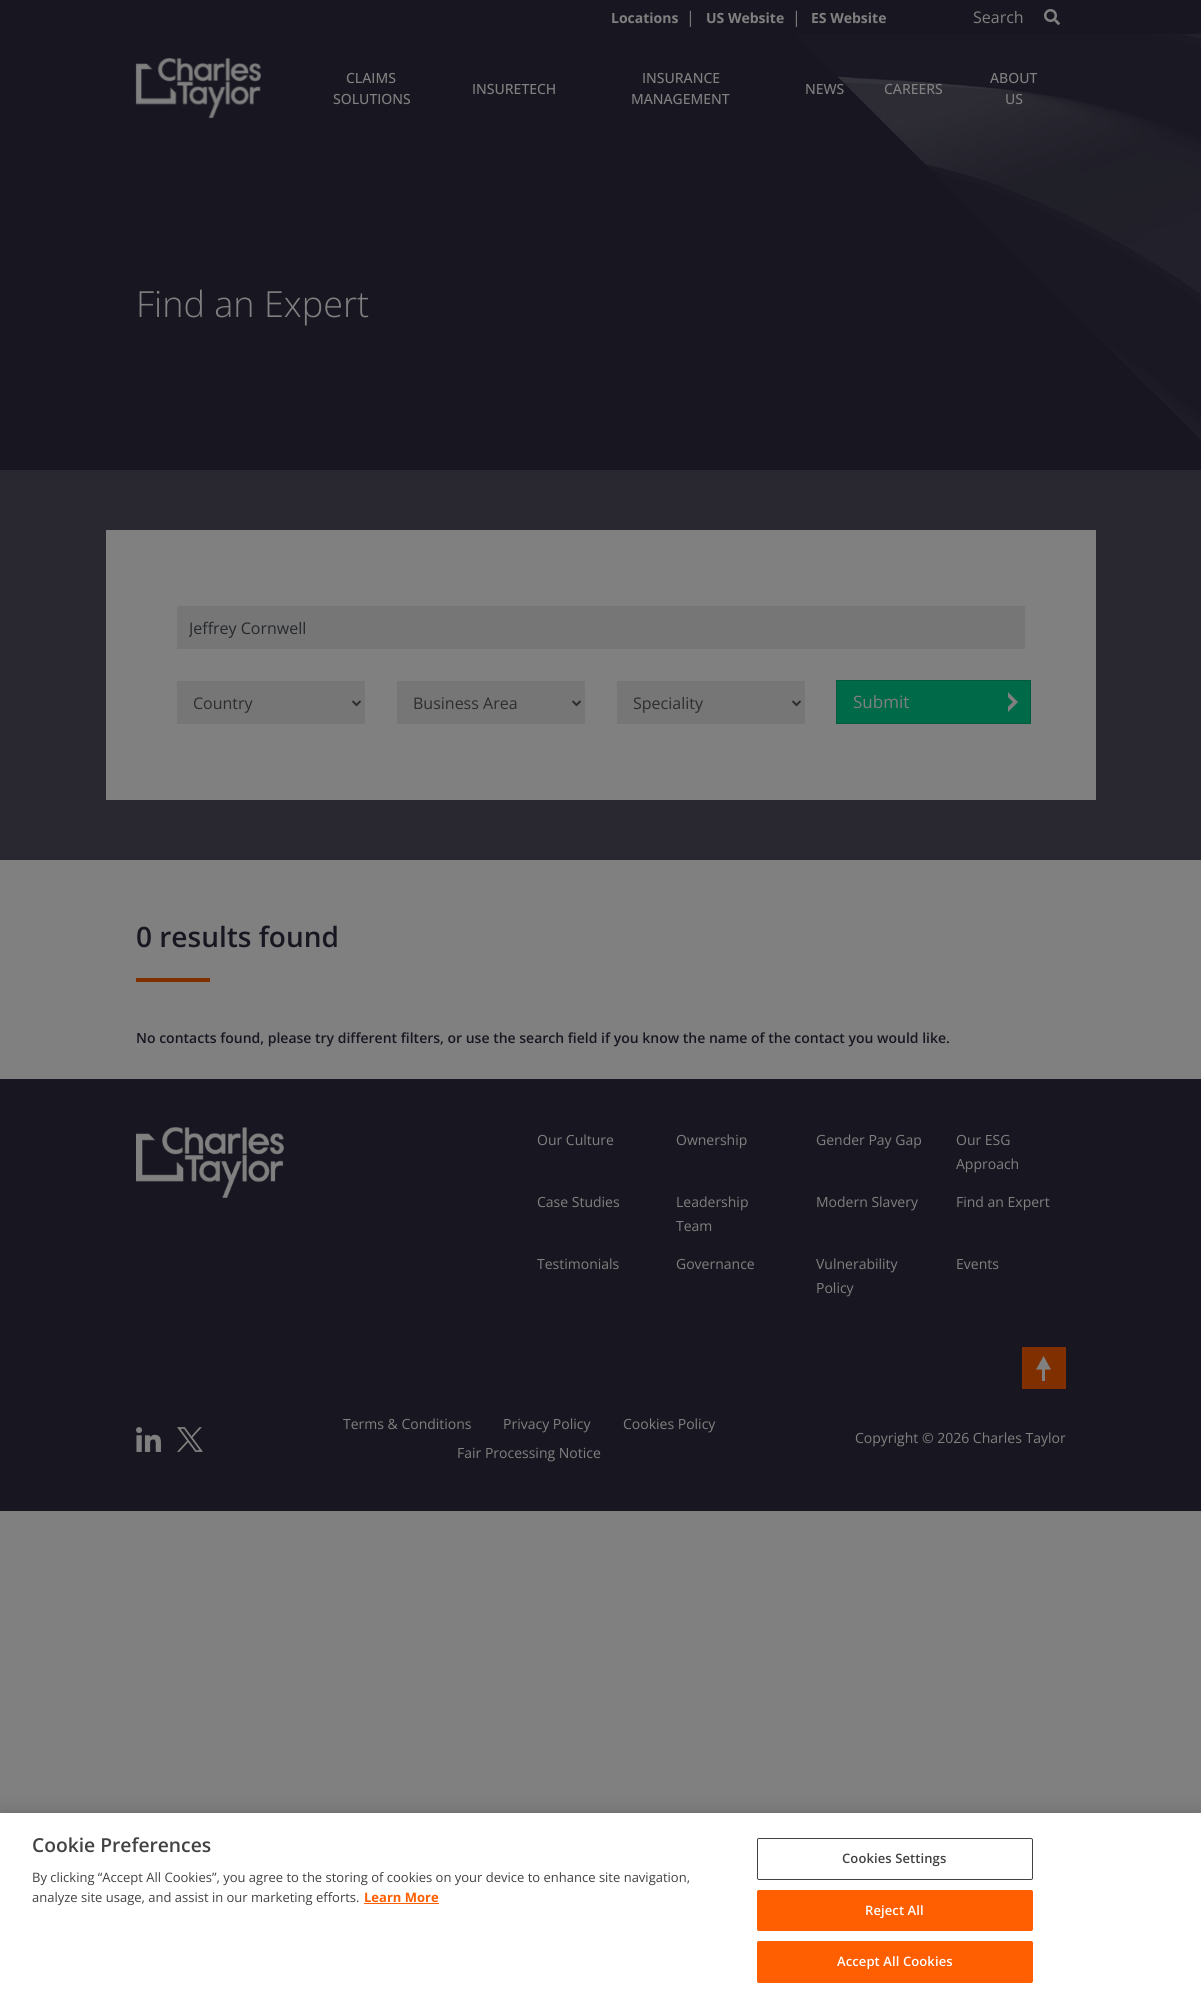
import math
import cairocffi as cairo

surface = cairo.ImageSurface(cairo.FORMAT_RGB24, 1201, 2003)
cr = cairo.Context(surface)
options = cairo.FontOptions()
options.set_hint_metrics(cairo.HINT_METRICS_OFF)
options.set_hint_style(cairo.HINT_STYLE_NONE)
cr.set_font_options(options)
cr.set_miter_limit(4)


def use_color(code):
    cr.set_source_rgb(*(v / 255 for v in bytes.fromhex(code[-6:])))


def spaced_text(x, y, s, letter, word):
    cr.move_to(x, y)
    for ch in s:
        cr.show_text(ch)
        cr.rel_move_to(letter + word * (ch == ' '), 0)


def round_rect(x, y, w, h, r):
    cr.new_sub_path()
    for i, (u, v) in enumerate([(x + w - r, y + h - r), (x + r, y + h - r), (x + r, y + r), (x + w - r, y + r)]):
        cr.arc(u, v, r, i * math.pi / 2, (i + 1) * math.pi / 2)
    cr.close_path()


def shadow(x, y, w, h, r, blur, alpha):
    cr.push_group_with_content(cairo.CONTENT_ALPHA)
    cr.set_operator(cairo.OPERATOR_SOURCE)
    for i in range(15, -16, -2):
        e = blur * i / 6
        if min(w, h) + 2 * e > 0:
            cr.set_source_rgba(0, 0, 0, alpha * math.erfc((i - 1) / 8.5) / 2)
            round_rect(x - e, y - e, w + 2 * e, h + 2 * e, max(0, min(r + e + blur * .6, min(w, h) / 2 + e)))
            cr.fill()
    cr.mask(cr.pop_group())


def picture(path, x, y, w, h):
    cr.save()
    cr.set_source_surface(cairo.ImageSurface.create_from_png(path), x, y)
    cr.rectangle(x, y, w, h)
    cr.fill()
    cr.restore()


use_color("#808080")
cr.paint()
use_color("#181721")
cr.rectangle(0, 0, 1201, 34)
cr.fill()
cr.select_font_face("Open Sans", cairo.FONT_SLANT_NORMAL, cairo.FONT_WEIGHT_BOLD)
cr.set_font_size(14)
use_color("#808080")
cr.move_to(611, 23)
cr.show_text("Locations")
cr.select_font_face("Open Sans")
cr.set_font_size(16)
cr.move_to(686, 23)
cr.show_text("|")
cr.select_font_face("Open Sans", cairo.FONT_SLANT_NORMAL, cairo.FONT_WEIGHT_BOLD)
cr.set_font_size(14)
cr.move_to(706, 23)
cr.show_text("US Website")
cr.select_font_face("Open Sans")
cr.set_font_size(16)
cr.move_to(792, 23)
cr.show_text("|")
cr.select_font_face("Open Sans", cairo.FONT_SLANT_NORMAL, cairo.FONT_WEIGHT_BOLD)
cr.set_font_size(14)
cr.move_to(811, 23)
cr.show_text("ES Website")
cr.select_font_face("Open Sans")
cr.set_font_size(16)
cr.move_to(973, 23)
cr.show_text("Search")
picture("img1.png", 1044, 9, 16, 16)
use_color("#181721")
cr.rectangle(0, 34, 601, 436)
cr.fill()
picture("img2.png", 135, 58, 126, 60)
cr.select_font_face("Open Sans Medium")
cr.set_font_size(14)
use_color("#808080")
cr.move_to(346, 83)
cr.show_text("CLAIMS")
cr.move_to(333, 104)
cr.show_text("SOLUTIONS")
cr.move_to(472, 94)
cr.show_text("INSURETECH")
picture("img4.png", 795, 34, 406, 406)
picture("img3.png", 601, 34, 600, 436)
cr.move_to(642, 83)
cr.show_text("INSURANCE")
cr.move_to(631, 104)
cr.show_text("MANAGEMENT")
cr.move_to(805, 94)
cr.show_text("NEWS")
cr.move_to(884, 94)
cr.show_text("CAREERS")
cr.move_to(990, 83)
cr.show_text("ABOUT")
cr.move_to(1005, 104)
cr.show_text("US")
cr.select_font_face("Open Sans Light")
cr.set_font_size(36)
cr.move_to(136, 317)
cr.show_text("Find an Expert")
use_color("#292831")
cr.rectangle(0, 470, 1201, 390)
cr.fill()
use_color("#808080")
cr.rectangle(106, 530, 990, 270)
cr.fill()
use_color("#767676")
cr.rectangle(177, 606, 848, 43)
cr.fill()
cr.save()
cr.rectangle(189, 616, 824, 24)
cr.clip()
cr.select_font_face("Open Sans")
cr.set_font_size(16)
use_color("#25282c")
cr.move_to(189, 634)
cr.show_text("Jeffrey Cornwell")
cr.restore()
cr.rectangle(177, 681, 188, 43)
cr.fill()
cr.new_path()
cr.move_to(352.5, 701)
cr.line_to(356.5, 705)
cr.line_to(360.5, 701)
use_color("#2d2d2d")
cr.stroke()
cr.select_font_face("Open Sans")
cr.set_font_size(16)
cr.move_to(193, 709)
cr.show_text("Country")
use_color("#767676")
cr.rectangle(397, 681, 188, 43)
cr.fill()
cr.new_path()
cr.move_to(572.5, 701)
cr.line_to(576.5, 705)
cr.line_to(580.5, 701)
use_color("#2d2d2d")
cr.stroke()
cr.move_to(413, 709)
cr.show_text("Business Area")
use_color("#767676")
cr.rectangle(617, 681, 188, 43)
cr.fill()
cr.new_path()
cr.move_to(792.5, 701)
cr.line_to(796.5, 705)
cr.line_to(800.5, 701)
use_color("#2d2d2d")
cr.stroke()
cr.move_to(633, 709)
cr.show_text("Speciality")
use_color("#006948")
cr.rectangle(836.5, 680.5, 194, 43)
cr.fill_preserve()
use_color("#005c3f")
cr.set_line_width(1)
cr.stroke()
cr.set_font_size(17)
use_color("#808080")
cr.move_to(853, 708)
cr.show_text("Submit")
picture("img5.png", 1008, 692, 10, 20)
cr.select_font_face("Open Sans SemiBold")
cr.set_font_size(28)
use_color("#181721")
cr.move_to(136, 947)
cr.show_text("0 results found")
use_color("#802f01")
cr.rectangle(136, 978, 74, 4)
cr.fill()
cr.set_font_size(14)
use_color("#181721")
cr.move_to(136, 1043)
cr.show_text("No contacts found, please try different filters, or use the search field if you know the name of the contact you would like.")
cr.rectangle(0, 1079, 1201, 432)
cr.fill()
picture("img6.png", 136, 1127, 148, 71)
cr.select_font_face("Open Sans")
use_color("#808080")
cr.move_to(537, 1145)
cr.show_text("Our Culture")
cr.move_to(676, 1145)
cr.show_text("Ownership")
cr.move_to(816, 1145)
cr.show_text("Gender Pay Gap")
cr.move_to(956, 1145)
cr.show_text("Our ESG")
cr.move_to(956, 1169)
cr.show_text("Approach")
cr.move_to(537, 1207)
cr.show_text("Case Studies")
cr.move_to(676, 1207)
cr.show_text("Leadership")
cr.move_to(676, 1231)
cr.show_text("Team")
cr.move_to(816, 1207)
cr.show_text("Modern Slavery")
cr.move_to(956, 1207)
cr.show_text("Find an Expert")
cr.move_to(537, 1269)
cr.show_text("Testimonials")
cr.move_to(676, 1269)
cr.show_text("Governance")
cr.move_to(816, 1269)
cr.show_text("Vulnerability")
cr.move_to(816, 1293)
cr.show_text("Policy")
cr.move_to(956, 1269)
cr.show_text("Events")
use_color("#802f01")
cr.rectangle(1022, 1347, 44, 42)
cr.fill()
picture("img7.png", 1036, 1356, 15, 25)
picture("img8.png", 136, 1427, 25, 25)
picture("img9.png", 177, 1427, 26, 25)
use_color("#808080")
cr.move_to(343, 1429)
cr.show_text("Terms & Conditions")
cr.move_to(503, 1429)
cr.show_text("Privacy Policy")
cr.move_to(623, 1429)
cr.show_text("Cookies Policy")
cr.move_to(457, 1458)
cr.show_text("Fair Processing Notice")
cr.move_to(855, 1443)
cr.show_text("Copyright © 2026 Charles Taylor")
use_color("#000000")
shadow(0, 1813, 1201, 190, 0, 9, 0.2)
use_color("#ffffff")
cr.rectangle(0, 1813, 1201, 190)
cr.fill()
cr.select_font_face("Open Sans SemiBold")
cr.set_font_size(19.25)
use_color("#424242")
cr.move_to(32, 1852)
cr.show_text("Cookie Preferences")
cr.select_font_face("Open Sans")
cr.set_font_size(13)
cr.move_to(32, 1882)
cr.show_text("By clicking “Accept All Cookies”, you agree to the storing of cookies on your device to enhance site navigation,")
cr.move_to(32, 1902)
cr.show_text("analyze site usage, and assist in our marketing efforts.")
cr.select_font_face("Open Sans", cairo.FONT_SLANT_NORMAL, cairo.FONT_WEIGHT_BOLD)
use_color("#ff5e01")
cr.move_to(364, 1902)
cr.show_text("Learn More")
cr.rectangle(364, 1903, 75, 1)
cr.fill()
round_rect(757.5, 1838.5, 275, 41, 1.5)
use_color("#424242")
cr.stroke()
cr.select_font_face("Open Sans SemiBold")
spaced_text(842, 1863, "Cookies Settings", 0.1, 0)
use_color("#ff5e01")
round_rect(757.5, 1890.5, 275, 40, 1.5)
cr.fill_preserve()
cr.stroke()
use_color("#ffffff")
spaced_text(865, 1915, "Reject All", 0.1, 0)
use_color("#ff5e01")
round_rect(757.5, 1941.5, 275, 41, 1.5)
cr.fill_preserve()
cr.stroke()
use_color("#ffffff")
spaced_text(837, 1966, "Accept All Cookies", 0.1, 0)
surface.write_to_png("result.png")
